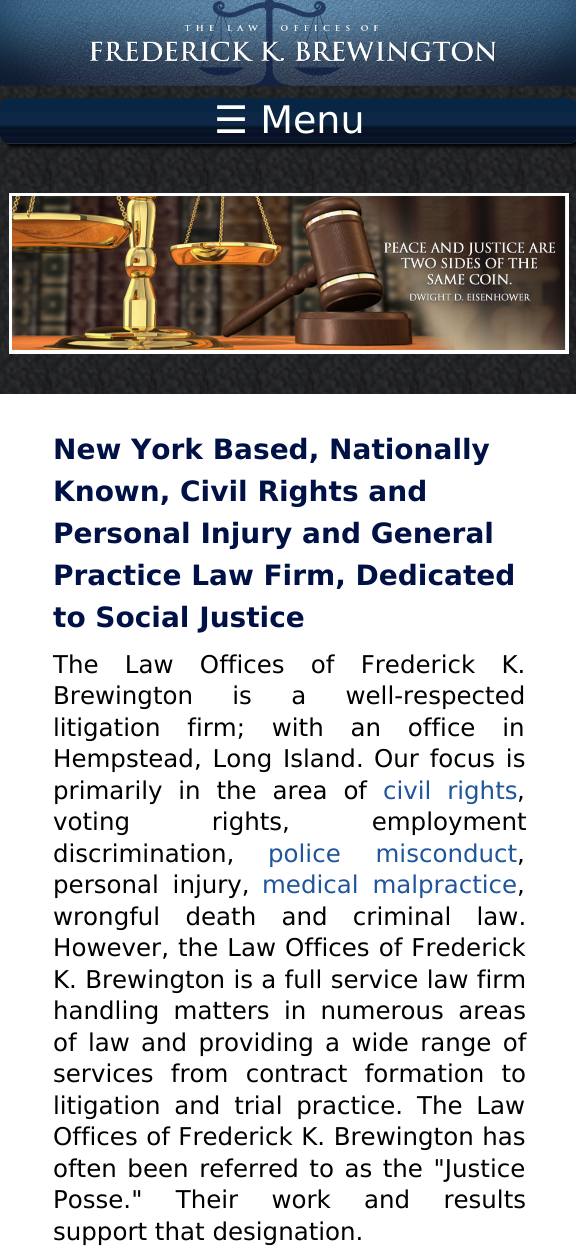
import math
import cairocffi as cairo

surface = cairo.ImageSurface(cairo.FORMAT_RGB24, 576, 1247)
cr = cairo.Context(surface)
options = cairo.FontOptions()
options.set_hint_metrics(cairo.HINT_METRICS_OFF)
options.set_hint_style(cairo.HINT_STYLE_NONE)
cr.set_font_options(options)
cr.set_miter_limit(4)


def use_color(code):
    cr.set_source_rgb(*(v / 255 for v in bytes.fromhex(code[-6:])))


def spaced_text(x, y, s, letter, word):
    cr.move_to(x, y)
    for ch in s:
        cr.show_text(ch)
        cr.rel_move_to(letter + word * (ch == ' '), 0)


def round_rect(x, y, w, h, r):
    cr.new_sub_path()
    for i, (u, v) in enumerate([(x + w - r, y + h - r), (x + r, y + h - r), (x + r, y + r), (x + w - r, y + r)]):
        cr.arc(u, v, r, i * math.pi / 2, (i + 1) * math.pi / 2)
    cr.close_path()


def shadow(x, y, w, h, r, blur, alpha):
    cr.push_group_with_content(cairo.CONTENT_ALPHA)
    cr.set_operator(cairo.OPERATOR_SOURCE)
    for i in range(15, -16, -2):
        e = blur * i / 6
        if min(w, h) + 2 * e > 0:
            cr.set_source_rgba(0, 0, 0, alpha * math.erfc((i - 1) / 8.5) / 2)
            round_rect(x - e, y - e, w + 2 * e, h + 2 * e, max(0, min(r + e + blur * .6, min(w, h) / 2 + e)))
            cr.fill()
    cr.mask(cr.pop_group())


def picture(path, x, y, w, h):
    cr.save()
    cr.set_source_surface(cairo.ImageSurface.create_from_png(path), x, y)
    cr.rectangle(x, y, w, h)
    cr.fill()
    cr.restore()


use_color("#ffffff")
cr.paint()
picture("img1.png", 0, 85, 576, 309)
picture("img2.png", 0, 0, 576, 86)
use_color("#000000")
shadow(4, 102, 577, 45, 9, 2, 1)
use_color("#333333")
round_rect(0, 98, 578, 46, 9)
cr.fill()
picture("img3.png", 0, 98, 576, 46)
cr.select_font_face("DejaVu Sans")
cr.set_font_size(38)
use_color("#ffffff")
cr.move_to(214, 133)
cr.show_text("☰ Menu")
cr.rectangle(11, 195, 556, 157)
cr.set_line_width(4)
cr.stroke()
picture("img4.png", 12, 196, 554, 154)
cr.select_font_face("DejaVu Sans", cairo.FONT_SLANT_NORMAL, cairo.FONT_WEIGHT_BOLD)
cr.set_font_size(28)
use_color("#001146")
cr.move_to(53, 459)
cr.show_text("New York Based, Nationally")
cr.move_to(53, 501)
cr.show_text("Known, Civil Rights and")
cr.move_to(53, 543)
cr.show_text("Personal Injury and General")
cr.move_to(53, 585)
cr.show_text("Practice Law Firm, Dedicated")
cr.move_to(53, 627)
cr.show_text("to Social Justice")
cr.select_font_face("DejaVu Sans")
cr.set_font_size(24.5)
use_color("#000000")
spaced_text(53, 673, "The Law Offices of Frederick K.", 0, 18.5)
spaced_text(53, 704, "Brewington is a well-respected", 0, 31.5)
spaced_text(53, 736, "litigation firm; with an office in", 0, 19)
spaced_text(53, 767, "Hempstead, Long Island.", 0, 3)
spaced_text(374, 767, "Our focus is", 0, 3)
spaced_text(53, 799, "primarily in the area of", 0, 8)
use_color("#1f559a")
spaced_text(383, 799, "civil rights", 0, 8)
use_color("#000000")
cr.move_to(517, 799)
cr.show_text(",")
spaced_text(53, 830, "voting rights, employment", 0, 74)
cr.move_to(53, 862)
cr.show_text("discrimination,")
use_color("#1f559a")
spaced_text(268, 862, "police misconduct", 0, 27)
use_color("#000000")
cr.move_to(517, 862)
cr.show_text(",")
spaced_text(53, 893, "personal injury,", 0, 6)
use_color("#1f559a")
spaced_text(262, 893, "medical malpractice", 0, 6)
use_color("#000000")
cr.move_to(517, 893)
cr.show_text(",")
spaced_text(53, 925, "wrongful death and criminal law.", 0, 17.5)
spaced_text(53, 956, "However, the Law Offices of Frederick", 0, 1.25)
spaced_text(53, 988, "K. Brewington is a full service law firm", 0, 0.5)
spaced_text(53, 1019, "handling matters in numerous areas", 0, 6.5)
spaced_text(53, 1051, "of law and providing a wide range of", 0, 3.5)
spaced_text(53, 1082, "services from contract formation to", 0, 9.5)
spaced_text(53, 1114, "litigation and trial practice. The Law", 0, 6)
spaced_text(53, 1145, "Offices of Frederick K. Brewington has", 0, 0.75)
spaced_text(53, 1177, "often been referred to as the \"Justice", 0, 2.75)
spaced_text(53, 1208, "Posse.\" Their work and results", 0, 25.5)
cr.move_to(53, 1240)
cr.show_text("support that designation.")
surface.write_to_png("result.png")
